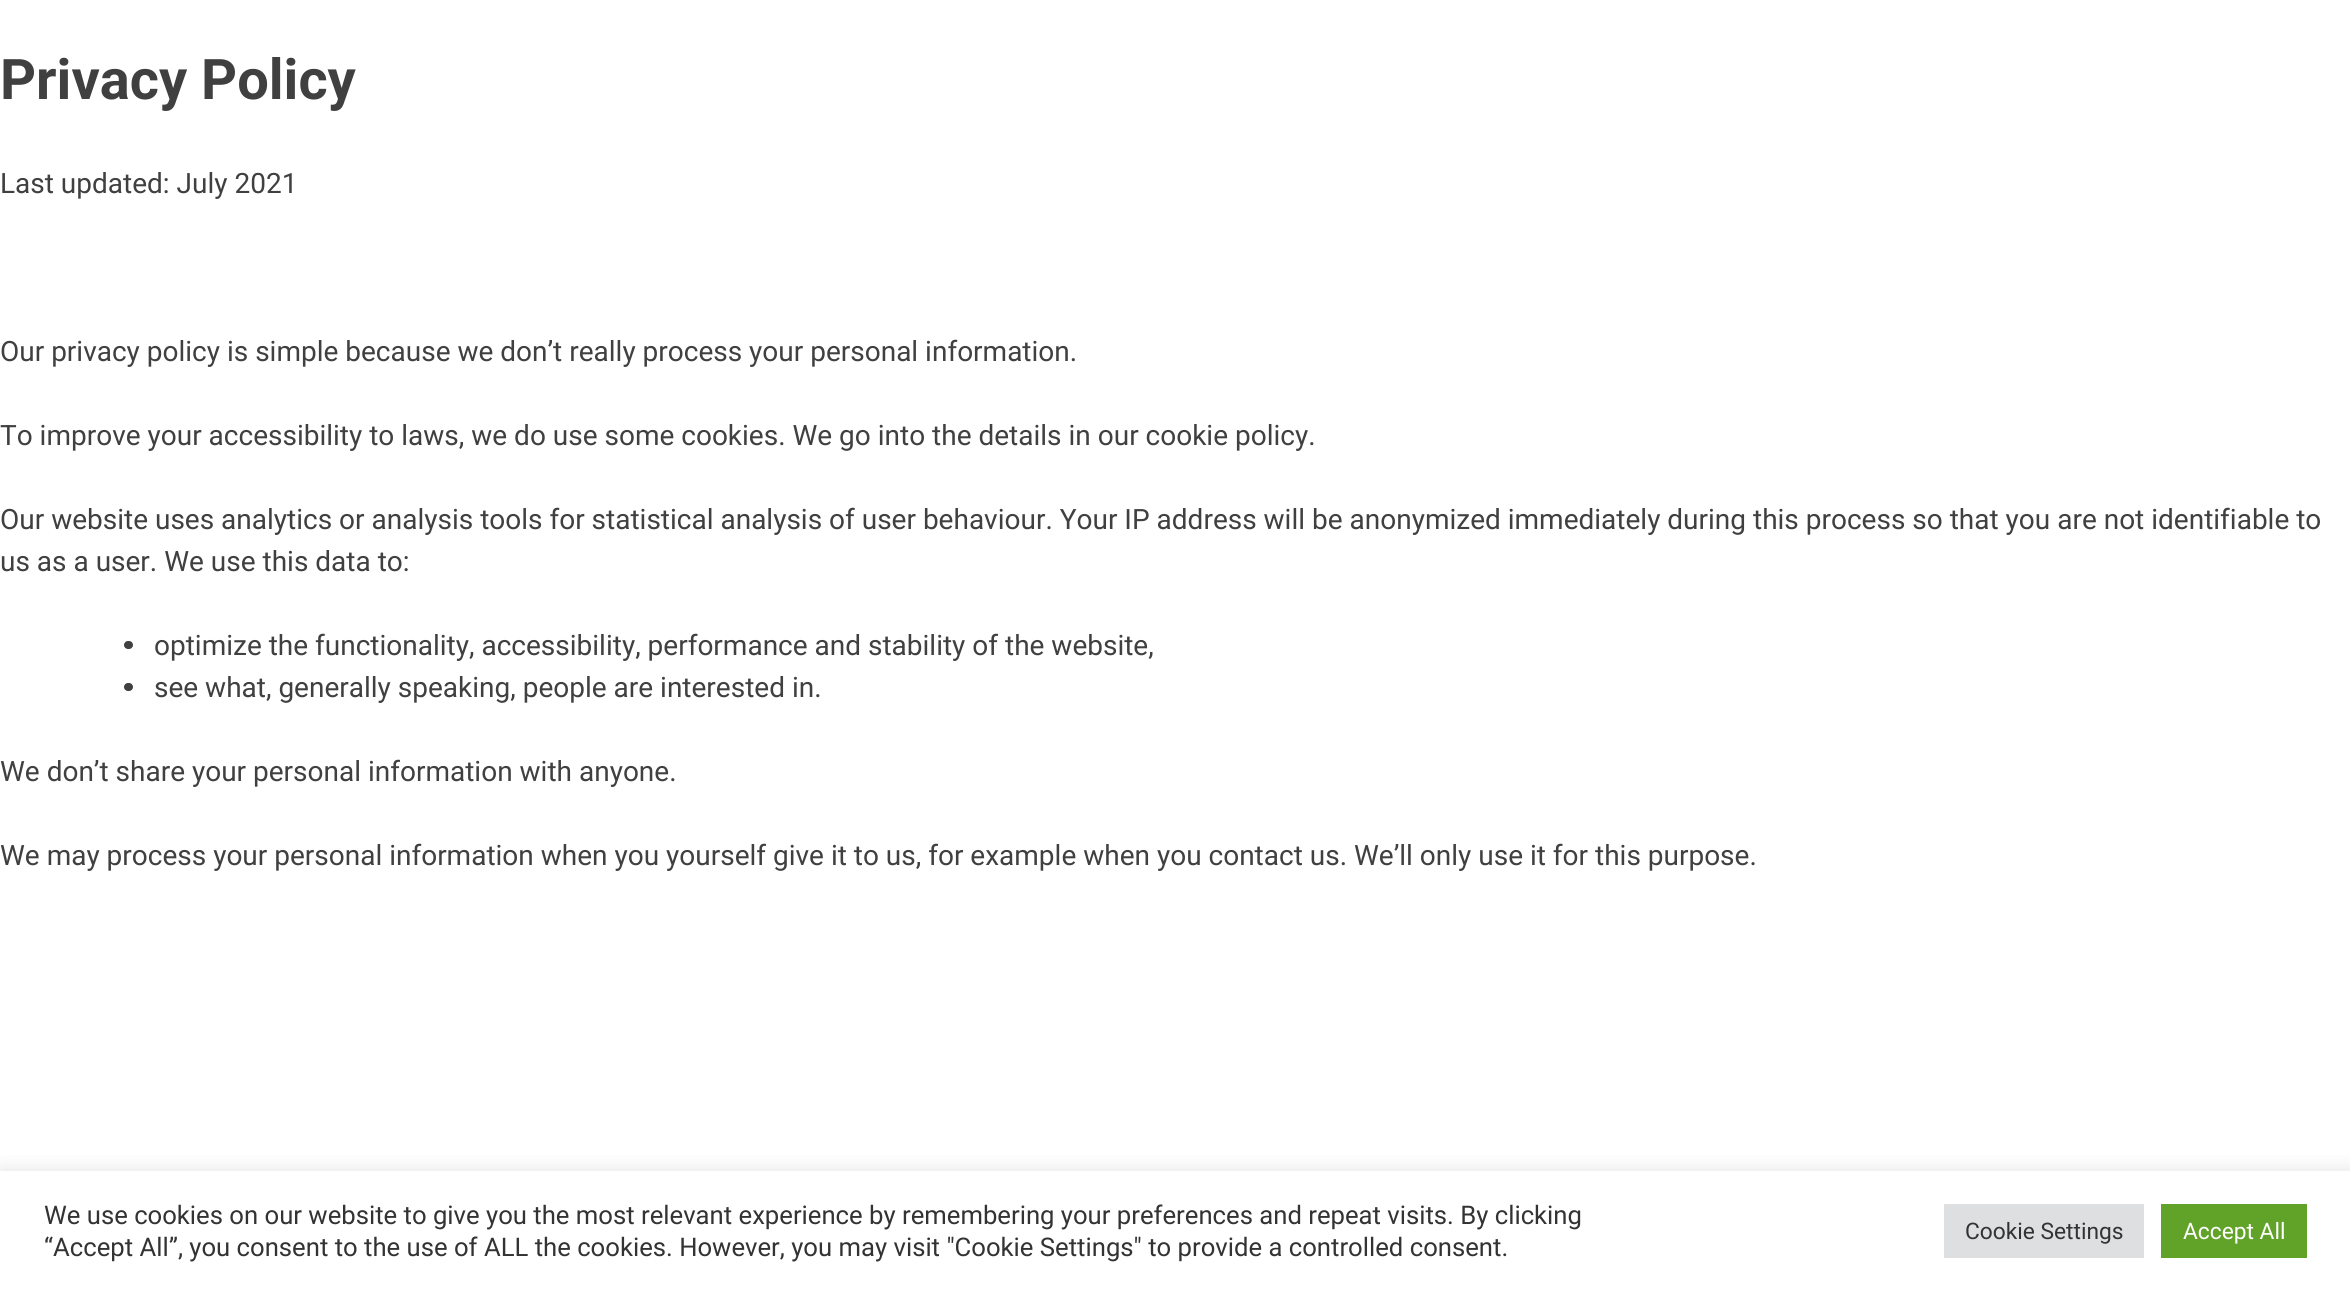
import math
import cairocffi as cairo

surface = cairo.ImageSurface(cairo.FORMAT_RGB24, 2350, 1290)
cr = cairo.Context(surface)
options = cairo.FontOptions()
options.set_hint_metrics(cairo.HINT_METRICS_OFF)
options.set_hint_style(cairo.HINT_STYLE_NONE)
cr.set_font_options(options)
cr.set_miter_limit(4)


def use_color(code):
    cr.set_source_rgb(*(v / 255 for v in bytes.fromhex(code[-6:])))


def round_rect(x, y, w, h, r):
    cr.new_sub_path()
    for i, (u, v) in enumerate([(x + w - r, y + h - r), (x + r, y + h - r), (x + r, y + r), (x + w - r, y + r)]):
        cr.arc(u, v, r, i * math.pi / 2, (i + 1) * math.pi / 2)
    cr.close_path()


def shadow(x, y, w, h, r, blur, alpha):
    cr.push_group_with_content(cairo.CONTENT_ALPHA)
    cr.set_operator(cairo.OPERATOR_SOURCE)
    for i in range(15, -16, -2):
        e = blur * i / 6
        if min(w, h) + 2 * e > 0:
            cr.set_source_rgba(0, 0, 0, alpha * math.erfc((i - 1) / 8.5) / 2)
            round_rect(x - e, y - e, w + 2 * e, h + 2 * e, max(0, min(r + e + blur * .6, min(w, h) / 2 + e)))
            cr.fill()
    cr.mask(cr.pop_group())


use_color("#ffffff")
cr.paint()
cr.select_font_face("Roboto", cairo.FONT_SLANT_NORMAL, cairo.FONT_WEIGHT_BOLD)
cr.set_font_size(56)
use_color("#404040")
cr.move_to(0, 99)
cr.show_text("Privacy Policy")
cr.select_font_face("Roboto")
cr.set_font_size(28)
cr.move_to(0, 193)
cr.show_text("Last updated: July 2021")
cr.move_to(0, 361)
cr.show_text("Our privacy policy is simple because we don’t really process your personal information.")
cr.move_to(0, 445)
cr.show_text("To improve your accessibility to laws, we do use some cookies. We go into the details in our cookie policy.")
cr.move_to(0, 529)
cr.show_text("Our website uses analytics or analysis tools for statistical analysis of user behaviour. Your IP address will be anonymized immediately during this process so that you are not identifiable to")
cr.move_to(0, 571)
cr.show_text("us as a user. We use this data to:")
round_rect(124, 641, 9, 8, 4)
cr.fill()
cr.move_to(154, 655)
cr.show_text("optimize the functionality, accessibility, performance and stability of the website,")
round_rect(124, 683, 9, 8, 4)
cr.fill()
cr.move_to(154, 697)
cr.show_text("see what, generally speaking, people are interested in.")
cr.move_to(0, 781)
cr.show_text("We don’t share your personal information with anyone.")
cr.move_to(0, 865)
cr.show_text("We may process your personal information when you yourself give it to us, for example when you contact us. We’ll only use it for this purpose.")
cr.save()
cr.rectangle(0, 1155, 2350, 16)
cr.clip()
use_color("#acabab")
shadow(0, 1169, 2350, 121, 0, 9, 0.3)
cr.restore()
cr.set_font_size(25.67)
use_color("#333333")
cr.move_to(44, 1224)
cr.show_text("We use cookies on our website to give you the most relevant experience by remembering your preferences and repeat visits. By clicking")
cr.move_to(44, 1256)
cr.show_text("“Accept All”, you consent to the use of ALL the cookies. However, you may visit \"Cookie Settings\" to provide a controlled consent.")
use_color("#dedfe0")
cr.rectangle(1944, 1204, 200, 54)
cr.fill()
cr.set_font_size(22.75)
use_color("#333333")
cr.move_to(1965, 1239)
cr.show_text("Cookie Settings")
use_color("#61a229")
cr.rectangle(2161, 1204, 146, 54)
cr.fill()
use_color("#ffffff")
cr.move_to(2183, 1239)
cr.show_text("Accept All")
surface.write_to_png("result.png")
